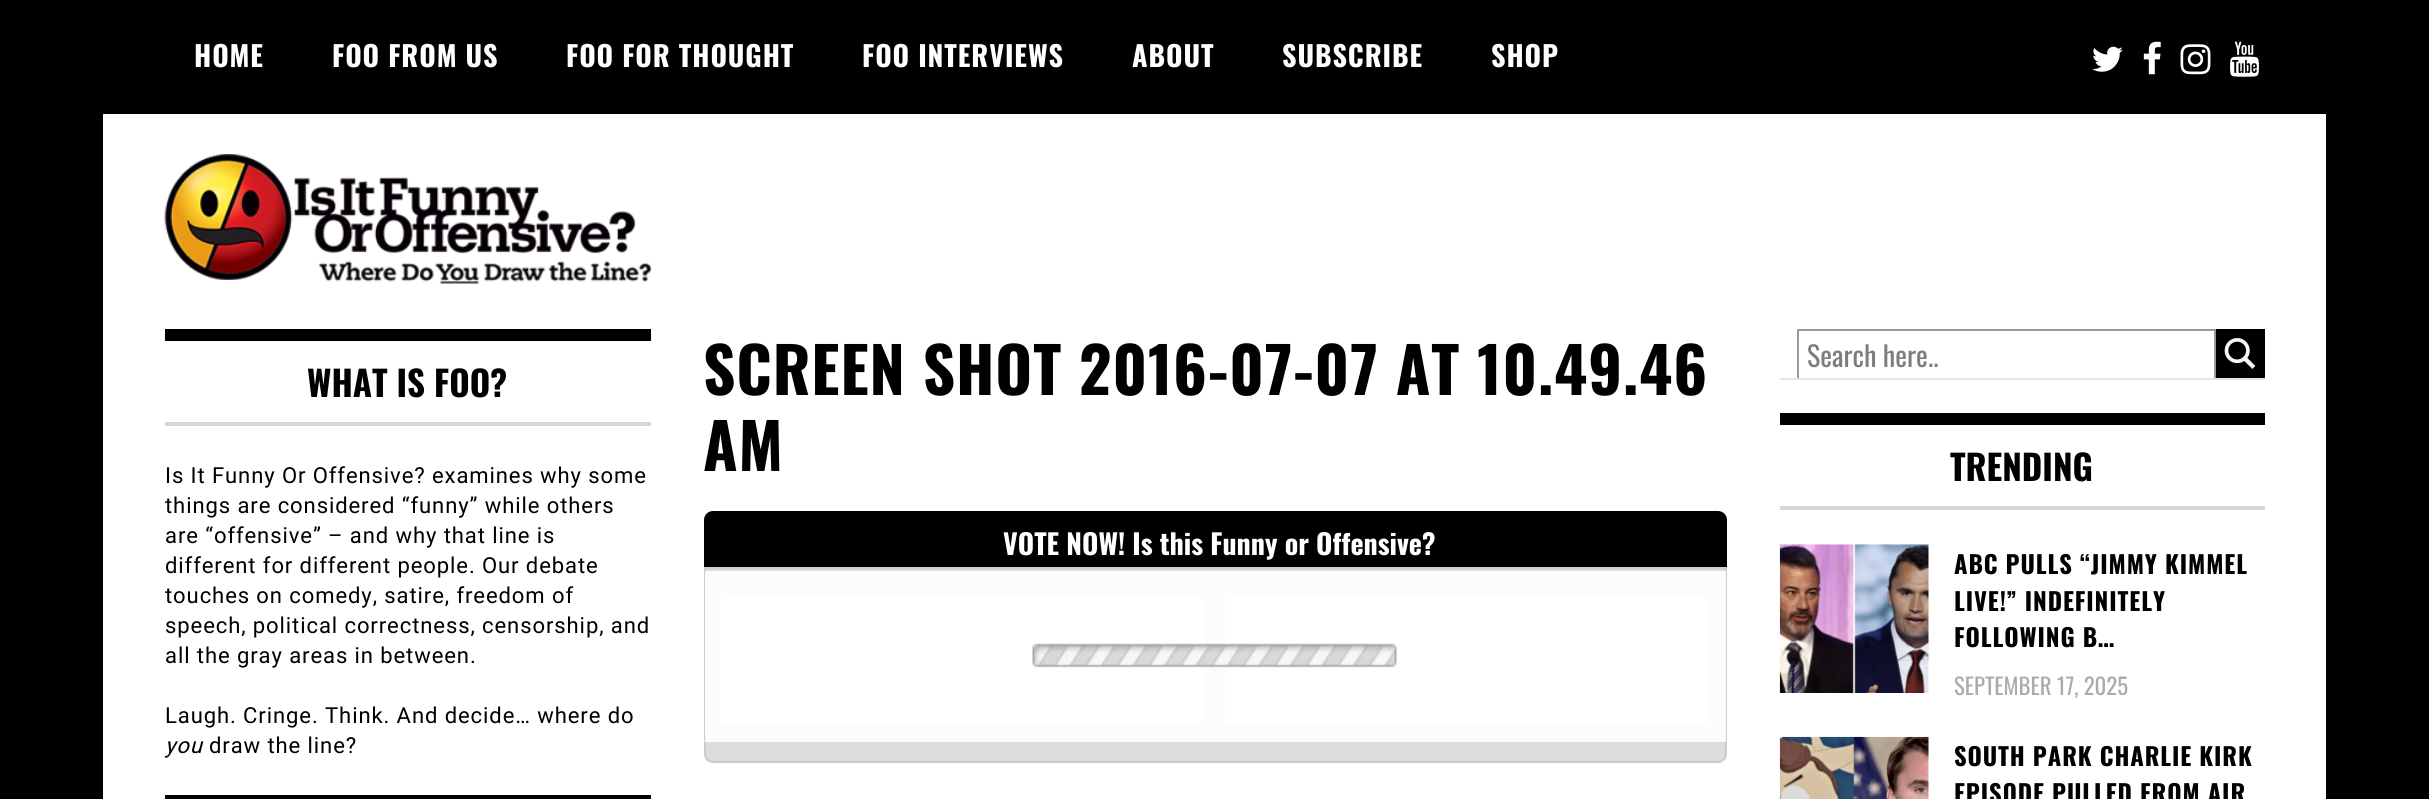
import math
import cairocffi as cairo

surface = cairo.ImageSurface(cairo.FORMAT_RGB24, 2429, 799)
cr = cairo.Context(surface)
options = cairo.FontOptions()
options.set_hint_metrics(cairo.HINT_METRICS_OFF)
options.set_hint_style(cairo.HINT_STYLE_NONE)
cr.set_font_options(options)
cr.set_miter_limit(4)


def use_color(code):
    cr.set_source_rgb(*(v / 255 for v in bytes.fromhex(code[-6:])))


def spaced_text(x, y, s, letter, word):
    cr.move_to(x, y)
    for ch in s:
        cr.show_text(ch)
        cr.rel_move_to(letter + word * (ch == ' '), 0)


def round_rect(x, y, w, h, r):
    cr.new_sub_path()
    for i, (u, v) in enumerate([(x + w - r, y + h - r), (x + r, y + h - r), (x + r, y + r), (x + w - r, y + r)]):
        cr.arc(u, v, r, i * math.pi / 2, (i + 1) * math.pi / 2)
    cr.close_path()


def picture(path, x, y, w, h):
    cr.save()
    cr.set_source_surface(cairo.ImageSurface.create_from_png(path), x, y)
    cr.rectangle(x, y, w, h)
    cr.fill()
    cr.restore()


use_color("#000000")
cr.paint()
use_color("#ffffff")
cr.rectangle(103, 114, 2223, 685)
cr.fill()
cr.select_font_face("Oswald", cairo.FONT_SLANT_NORMAL, cairo.FONT_WEIGHT_BOLD)
cr.set_font_size(28.25)
spaced_text(194, 67, "HOME", 0.9, 0)
spaced_text(332, 67, "FOO FROM US", 0.9, 0)
spaced_text(566, 67, "FOO FOR THOUGHT", 0.9, 0)
spaced_text(862, 67, "FOO INTERVIEWS", 0.9, 0)
spaced_text(1132, 67, "ABOUT", 0.9, 0)
spaced_text(1282, 67, "SUBSCRIBE", 0.9, 0)
spaced_text(1491, 67, "SHOP", 0.9, 0)
picture("img1.png", 2092, 46, 31, 26)
picture("img2.png", 2143, 41, 18, 34)
picture("img3.png", 2180, 44, 31, 31)
picture("img4.png", 2230, 41, 29, 36)
picture("img5.png", 164, 154, 487, 130)
use_color("#000000")
cr.rectangle(165, 329, 486, 12)
cr.fill()
use_color("#d7d7d7")
cr.rectangle(165, 422, 486, 4)
cr.fill()
cr.set_font_size(35)
use_color("#000000")
cr.move_to(307, 397)
cr.show_text("WHAT IS FOO?")
cr.select_font_face("Roboto")
cr.set_font_size(22.05)
spaced_text(165, 483, "Is It Funny Or Offensive? examines why some", 0.9, 0)
spaced_text(165, 513, "things are considered “funny” while others", 0.9, 0)
spaced_text(165, 543, "are “offensive” – and why that line is", 0.9, 0)
spaced_text(165, 573, "different for different people. Our debate", 0.9, 0)
spaced_text(165, 603, "touches on comedy, satire, freedom of", 0.9, 0)
spaced_text(165, 633, "speech, political correctness, censorship, and", 0.9, 0)
spaced_text(165, 663, "all the gray areas in between.", 0.9, 0)
spaced_text(165, 723, "Laugh. Cringe. Think. And decide… where do", 0.9, 0)
cr.select_font_face("Roboto", cairo.FONT_SLANT_ITALIC)
spaced_text(165, 753, "you", 0.9, 0)
cr.select_font_face("Roboto")
spaced_text(209, 753, "draw the line?", 0.9, 0)
cr.rectangle(165, 795, 486, 4)
cr.fill()
cr.select_font_face("Oswald", cairo.FONT_SLANT_NORMAL, cairo.FONT_WEIGHT_BOLD)
cr.set_font_size(63)
spaced_text(703, 395, "SCREEN SHOT 2016-07-07 AT 10.49.46", 0.9, 0)
spaced_text(703, 471, "AM", 0.9, 0)
cr.new_path()
cr.move_to(713, 511)
cr.line_to(1718, 511)
cr.curve_to(1723, 511, 1727, 515, 1727, 520)
cr.line_to(1727, 567)
cr.line_to(704, 567)
cr.line_to(704, 520)
cr.curve_to(704, 515, 708, 511, 713, 511)
cr.close_path()
cr.fill()
cr.set_font_size(28)
use_color("#ffffff")
cr.move_to(1003, 555)
cr.show_text("VOTE NOW! Is this Funny or Offensive?")
use_color("#dddddd")
cr.new_path()
cr.move_to(705, 568)
cr.line_to(1726, 568)
cr.line_to(1726, 754)
cr.curve_to(1726, 758.5, 1722.5, 762, 1718, 762)
cr.line_to(713, 762)
cr.curve_to(708.5, 762, 705, 758.5, 705, 754)
cr.close_path()
cr.fill_preserve()
use_color("#cccccc")
cr.stroke()
round_rect(726, 579, 978, 6, 3)
cr.stroke()
use_color("#ffffff")
round_rect(719, 596, 486, 129, 8)
cr.fill_preserve()
use_color("#dddddd")
cr.stroke()
use_color("#ffffff")
round_rect(1224, 596, 487, 129, 8)
cr.fill_preserve()
use_color("#dddddd")
cr.stroke()
cr.set_source_rgba(1, 1, 1, 0.9)
cr.rectangle(705, 571, 1021, 171)
cr.fill()
picture("img6.png", 1032, 643, 365, 25)
use_color("#e4e4e4")
cr.new_path()
cr.move_to(1780, 378)
cr.line_to(1780, 380)
cr.line_to(2265, 380)
cr.line_to(2265, 331)
cr.line_to(2264, 331)
cr.line_to(2264, 378)
cr.close_path()
cr.fill()
cr.save()
cr.rectangle(1780, 329, 485, 49)
cr.clip()
cr.rectangle(1798, 330, 417, 51)
use_color("#999999")
cr.stroke()
cr.restore()
cr.select_font_face("Oswald")
use_color("#7d7d7d")
cr.move_to(1807, 367)
cr.show_text("Search here..")
use_color("#000000")
cr.rectangle(2216, 329, 49, 49)
cr.fill()
picture("img7.png", 2224, 338, 32, 31)
cr.rectangle(1780, 413, 485, 12)
cr.fill()
use_color("#d7d7d7")
cr.rectangle(1780, 506, 485, 4)
cr.fill()
cr.select_font_face("Oswald", cairo.FONT_SLANT_NORMAL, cairo.FONT_WEIGHT_BOLD)
cr.set_font_size(35)
use_color("#000000")
cr.move_to(1950, 481)
cr.show_text("TRENDING")
picture("img8.png", 1779, 544, 150, 149)
cr.set_font_size(24.5)
spaced_text(1954, 574, "ABC PULLS “JIMMY KIMMEL", 0.9, 0)
spaced_text(1954, 611, "LIVE!” INDEFINITELY", 0.9, 0)
spaced_text(1954, 647, "FOLLOWING B…", 0.9, 0)
cr.select_font_face("Oswald")
cr.set_font_size(22.75)
use_color("#ababab")
cr.move_to(1954, 695)
cr.show_text("SEPTEMBER 17, 2025")
picture("img9.png", 1779, 736, 150, 63)
cr.select_font_face("Oswald", cairo.FONT_SLANT_NORMAL, cairo.FONT_WEIGHT_BOLD)
cr.set_font_size(24.5)
use_color("#000000")
spaced_text(1954, 766, "SOUTH PARK CHARLIE KIRK", 0.9, 0)
spaced_text(1954, 803, "EPISODE PULLED FROM AIR", 0.9, 0)
surface.write_to_png("result.png")
